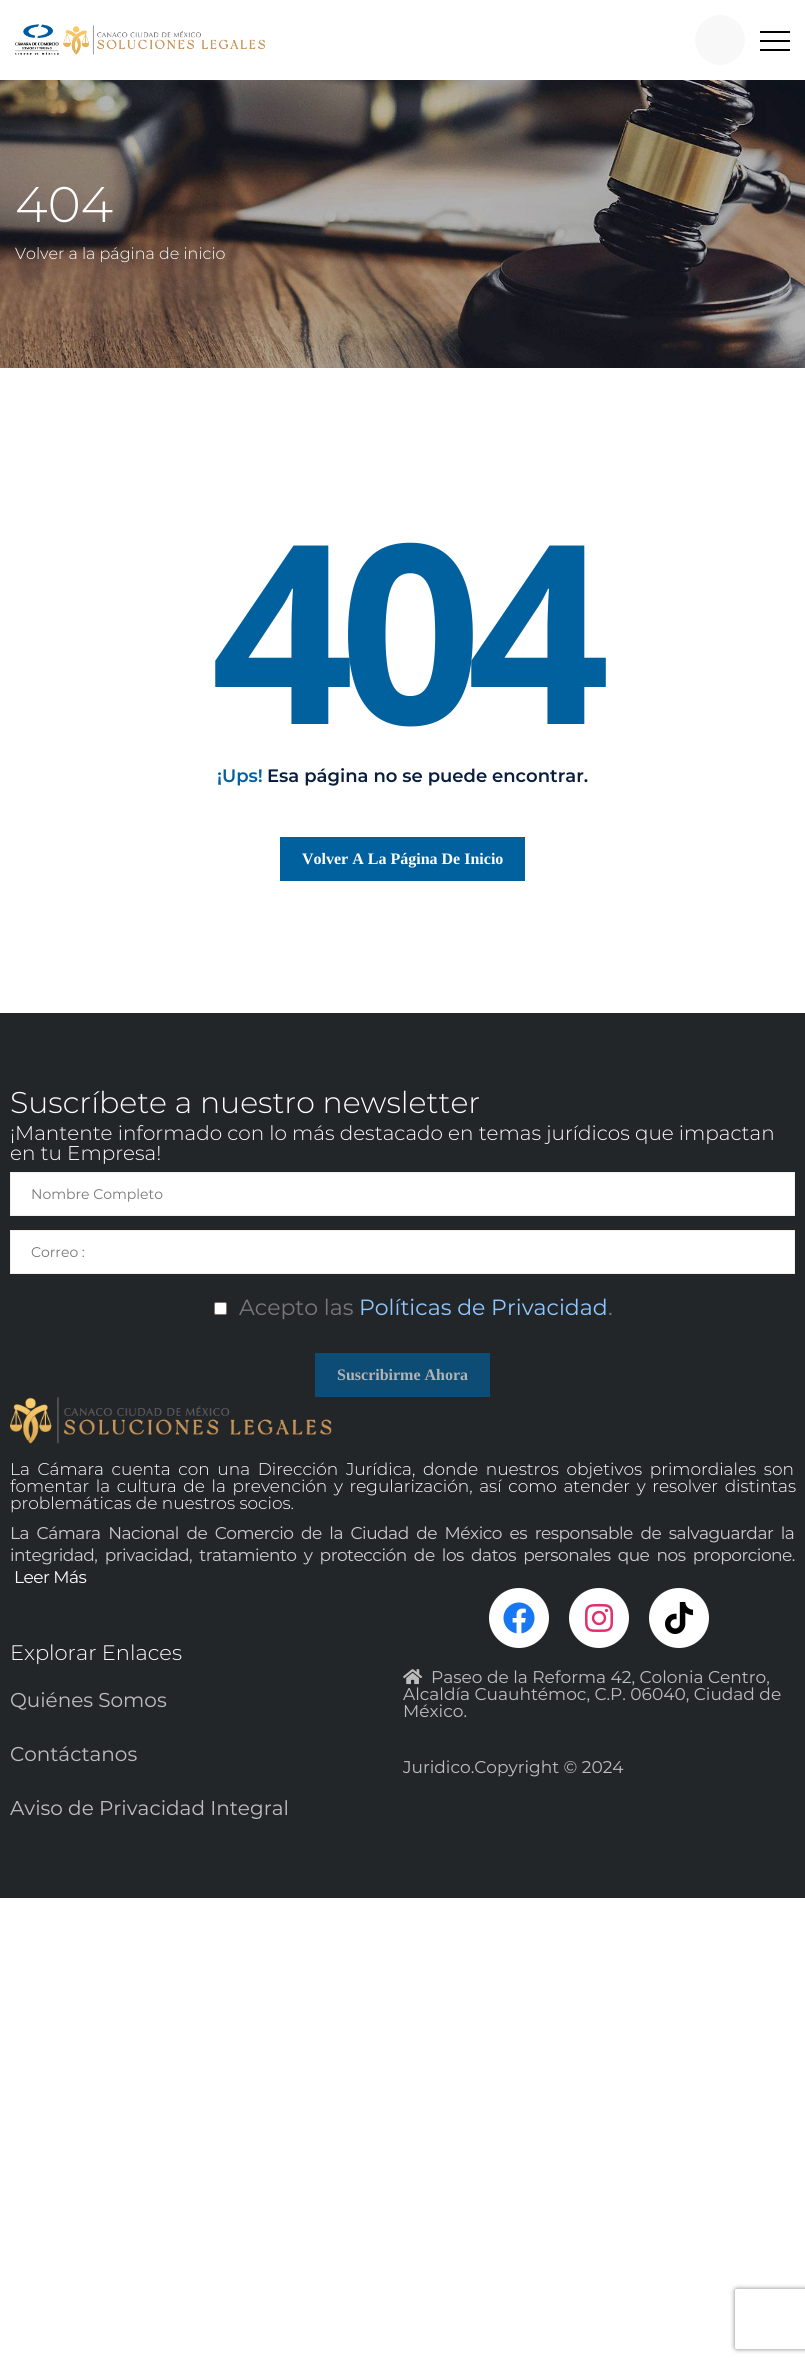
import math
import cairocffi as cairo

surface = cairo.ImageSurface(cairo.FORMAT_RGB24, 805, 2363)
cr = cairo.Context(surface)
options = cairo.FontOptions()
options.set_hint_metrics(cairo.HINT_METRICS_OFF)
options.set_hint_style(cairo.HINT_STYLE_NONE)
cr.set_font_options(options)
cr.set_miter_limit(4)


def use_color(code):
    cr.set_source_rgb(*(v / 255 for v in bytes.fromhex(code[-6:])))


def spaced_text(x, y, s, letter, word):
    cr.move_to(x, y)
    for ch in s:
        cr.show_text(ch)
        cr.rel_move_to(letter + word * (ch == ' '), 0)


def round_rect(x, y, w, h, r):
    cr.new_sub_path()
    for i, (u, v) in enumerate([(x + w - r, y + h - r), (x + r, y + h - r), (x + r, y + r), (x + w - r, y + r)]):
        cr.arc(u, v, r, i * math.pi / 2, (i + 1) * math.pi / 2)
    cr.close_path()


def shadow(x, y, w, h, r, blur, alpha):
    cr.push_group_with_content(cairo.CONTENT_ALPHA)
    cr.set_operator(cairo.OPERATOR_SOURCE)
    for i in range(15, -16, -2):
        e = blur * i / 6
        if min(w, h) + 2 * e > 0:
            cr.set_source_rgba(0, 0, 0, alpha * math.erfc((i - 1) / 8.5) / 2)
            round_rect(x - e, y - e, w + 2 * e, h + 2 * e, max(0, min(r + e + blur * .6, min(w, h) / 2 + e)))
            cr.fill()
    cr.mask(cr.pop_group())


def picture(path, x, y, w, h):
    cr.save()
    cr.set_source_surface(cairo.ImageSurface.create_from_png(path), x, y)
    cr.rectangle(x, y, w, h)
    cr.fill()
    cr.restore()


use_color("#ffffff")
cr.paint()
picture("img1.png", 15, 24, 250, 31)
use_color("#f8f8f8")
cr.arc(720, 40, 25, 0, 2 * math.pi)
cr.fill()
use_color("#000000")
cr.rectangle(760, 31, 30, 2)
cr.fill()
cr.rectangle(760, 40, 30, 2)
cr.fill()
cr.rectangle(760, 49, 30, 2)
cr.fill()
picture("img2.png", 0, 80, 805, 288)
cr.select_font_face("Montserrat Light")
cr.set_font_size(50)
use_color("#ffffff")
cr.move_to(15, 222)
cr.show_text("404")
cr.set_font_size(16)
cr.move_to(15, 259)
cr.show_text("Volver a la página de inicio")
cr.select_font_face("Open Sans", cairo.FONT_SLANT_NORMAL, cairo.FONT_WEIGHT_BOLD)
cr.set_font_size(250)
use_color("#01619e")
spaced_text(211, 724, "404", -15, 0)
cr.select_font_face("Montserrat SemiBold")
cr.set_font_size(18)
cr.move_to(217, 782)
cr.show_text("¡Ups!")
use_color("#091d3e")
cr.move_to(267, 782)
cr.show_text("Esa página no se puede encontrar.")
use_color("#01619e")
cr.rectangle(280, 837, 245, 44)
cr.fill()
cr.select_font_face("Liberation Serif", cairo.FONT_SLANT_NORMAL, cairo.FONT_WEIGHT_BOLD)
cr.set_font_size(16)
use_color("#ffffff")
cr.move_to(302, 864)
cr.show_text("Volver A La Página De Inicio")
use_color("#232629")
cr.rectangle(0, 1013, 805, 885)
cr.fill()
cr.select_font_face("Montserrat Light")
cr.set_font_size(30)
use_color("#ffffff")
cr.move_to(10, 1113)
cr.show_text("Suscríbete a nuestro newsletter")
cr.set_font_size(20)
cr.move_to(10, 1140)
cr.show_text("¡Mantente informado con lo más destacado en temas jurídicos que impactan")
cr.move_to(10, 1160)
cr.show_text("en tu Empresa!")
cr.rectangle(10.5, 1172.5, 784, 43)
cr.fill_preserve()
use_color("#eff0f0")
cr.set_line_width(1)
cr.stroke()
cr.select_font_face("Montserrat")
cr.set_font_size(14)
use_color("#777777")
cr.move_to(31, 1199)
cr.show_text("Nombre Completo")
use_color("#ffffff")
cr.rectangle(10.5, 1230.5, 784, 43)
cr.fill_preserve()
use_color("#eff0f0")
cr.stroke()
use_color("#777777")
cr.move_to(31, 1257)
cr.show_text("Correo :")
use_color("#ffffff")
round_rect(214.5, 1302.5, 12, 12, 1.5)
cr.fill_preserve()
use_color("#767676")
cr.stroke()
cr.set_font_size(22)
use_color("#777777")
cr.move_to(239, 1315)
cr.show_text("Acepto las")
use_color("#8ec8ff")
cr.move_to(359, 1315)
cr.show_text("Políticas de Privacidad")
use_color("#777777")
cr.move_to(608, 1315)
cr.show_text(".")
use_color("#0d4c75")
cr.rectangle(315, 1353, 175, 44)
cr.fill()
cr.select_font_face("Liberation Serif", cairo.FONT_SLANT_NORMAL, cairo.FONT_WEIGHT_BOLD)
cr.set_font_size(16)
use_color("#b2b3b4")
cr.move_to(337, 1380)
cr.show_text("Suscribirme Ahora")
picture("img3.png", 10, 1397, 322, 47)
cr.select_font_face("Montserrat Light")
cr.set_font_size(17)
use_color("#ffffff")
spaced_text(10, 1475, "La Cámara cuenta con una Dirección Jurídica, donde nuestros objetivos primordiales son", 0, 3.25)
spaced_text(10, 1492, "fomentar la cultura de la prevención y regularización, así como atender y resolver distintas", 0, 2.25)
cr.move_to(10, 1509)
cr.show_text("problemáticas de nuestros socios.")
cr.select_font_face("Montserrat")
use_color("#cccccc")
spaced_text(10, 1539, "La Cámara Nacional de Comercio de la Ciudad de México es responsable de salvaguardar la", -0.5, 3.6)
spaced_text(10, 1561, "integridad, privacidad, tratamiento y protección de los datos personales que nos proporcione.", -0.5, 3.25)
use_color("#ffffff")
spaced_text(14, 1583, "Leer Más", -0.5, 0)
cr.select_font_face("Montserrat Light")
cr.set_font_size(21)
cr.move_to(10, 1660)
cr.show_text("Explorar Enlaces")
cr.select_font_face("Montserrat")
cr.set_font_size(20)
use_color("#bdbebf")
cr.move_to(10, 1707)
cr.show_text("Quiénes Somos")
cr.move_to(10, 1761)
cr.show_text("Contáctanos")
cr.move_to(10, 1815)
cr.show_text("Aviso de Privacidad Integral")
use_color("#ffffff")
cr.new_path()
cr.arc(519, 1618, 30, 0, 2 * math.pi)
cr.fill()
picture("img4.png", 503, 1602, 32, 32)
cr.arc(599, 1618, 30, 0, 2 * math.pi)
cr.fill()
picture("img5.png", 585, 1603, 29, 29)
cr.arc(679, 1618, 30, 0, 2 * math.pi)
cr.fill()
picture("img6.png", 665, 1602, 28, 32)
picture("img7.png", 403, 1669, 20, 16)
cr.set_font_size(17)
use_color("#bdbebf")
cr.move_to(431, 1683)
cr.show_text("Paseo de la Reforma 42, Colonia Centro,")
cr.move_to(403, 1700)
cr.show_text("Alcaldía Cuauhtémoc, C.P. 06040, Ciudad de")
cr.move_to(403, 1717)
cr.show_text("México.")
cr.move_to(403, 1773)
cr.show_text("Juridico.Copyright © 2024")
cr.save()
cr.set_fill_rule(cairo.FILL_RULE_EVEN_ODD)
cr.new_path()
cr.move_to(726, 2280)
cr.line_to(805, 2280)
cr.line_to(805, 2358)
cr.line_to(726, 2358)
cr.close_path()
cr.move_to(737, 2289)
cr.line_to(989, 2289)
cr.curve_to(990, 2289, 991, 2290, 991, 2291)
cr.line_to(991, 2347)
cr.curve_to(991, 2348, 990, 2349, 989, 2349)
cr.line_to(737, 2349)
cr.curve_to(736, 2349, 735, 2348, 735, 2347)
cr.line_to(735, 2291)
cr.curve_to(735, 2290, 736, 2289, 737, 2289)
cr.close_path()
cr.clip()
use_color("#808080")
shadow(735, 2289, 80, 60, 2, 2.5, 1)
cr.restore()
surface.write_to_png("result.png")
